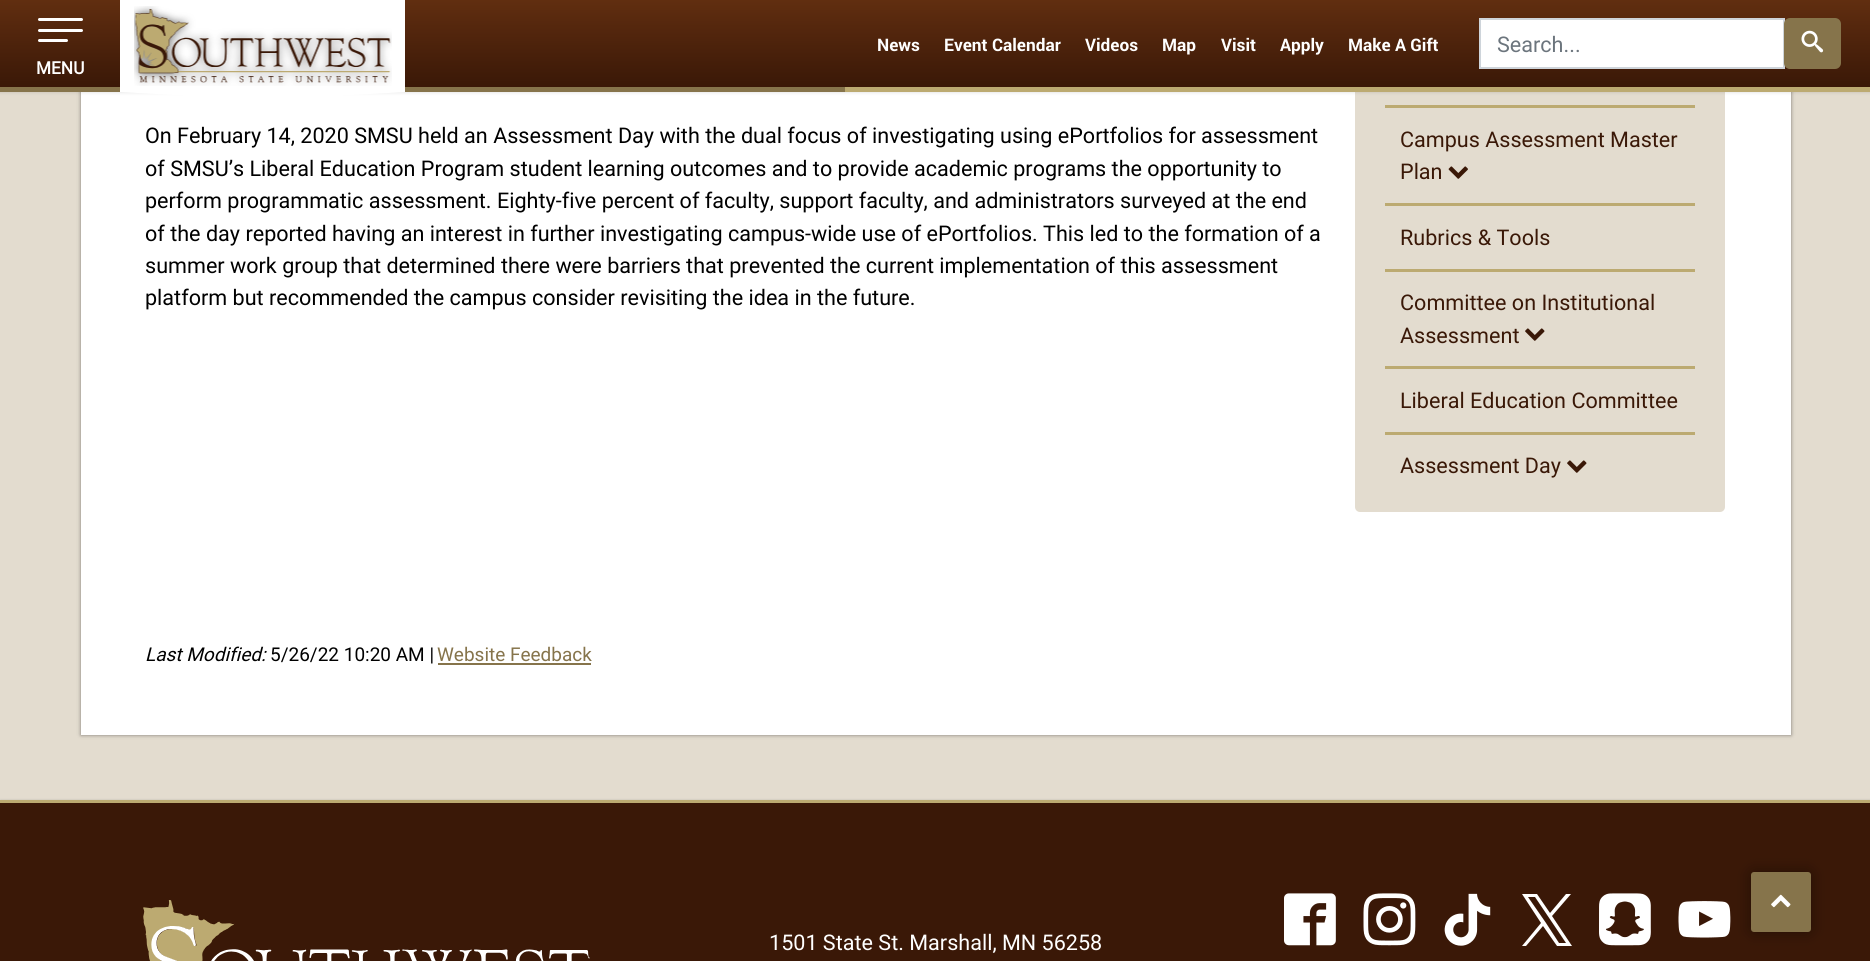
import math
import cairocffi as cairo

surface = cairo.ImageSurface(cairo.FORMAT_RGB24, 1870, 961)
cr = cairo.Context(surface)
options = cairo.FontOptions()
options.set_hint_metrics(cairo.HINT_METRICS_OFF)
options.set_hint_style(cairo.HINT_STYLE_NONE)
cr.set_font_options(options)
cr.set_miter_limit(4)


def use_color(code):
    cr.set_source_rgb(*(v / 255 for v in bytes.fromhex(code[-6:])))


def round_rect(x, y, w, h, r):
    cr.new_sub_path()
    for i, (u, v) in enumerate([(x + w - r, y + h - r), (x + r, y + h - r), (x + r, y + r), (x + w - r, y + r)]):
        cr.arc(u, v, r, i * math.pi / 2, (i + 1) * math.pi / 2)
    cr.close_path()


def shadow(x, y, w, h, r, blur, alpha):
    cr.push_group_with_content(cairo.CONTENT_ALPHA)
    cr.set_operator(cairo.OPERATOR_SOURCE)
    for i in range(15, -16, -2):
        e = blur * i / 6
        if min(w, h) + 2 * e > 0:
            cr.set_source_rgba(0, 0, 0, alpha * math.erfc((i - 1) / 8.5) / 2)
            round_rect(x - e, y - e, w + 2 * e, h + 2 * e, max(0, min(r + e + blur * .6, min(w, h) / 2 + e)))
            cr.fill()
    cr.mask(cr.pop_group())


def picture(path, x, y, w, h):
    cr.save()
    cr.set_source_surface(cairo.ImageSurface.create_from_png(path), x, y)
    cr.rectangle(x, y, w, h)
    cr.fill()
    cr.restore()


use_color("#e3dccf")
cr.paint()
use_color("#000000")
shadow(81, -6, 1710, 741, 0, 2, 0.45)
use_color("#ffffff")
cr.rectangle(81, 92, 1710, 643)
cr.fill()
use_color("#e3dccf")
round_rect(1355, 27, 370, 485, 5)
cr.fill()
use_color("#000000")
shadow(0, 0, 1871, 92, 0, 2, 0.15)
gradient = cairo.LinearGradient(935, 0, 935, 87)
gradient.add_color_stop_rgba(0, 0.38, 0.18, 0.063, 1)
gradient.add_color_stop_rgba(1, 0.227, 0.094, 0.027, 1)
cr.set_source(gradient)
cr.rectangle(0, 0, 1870, 87)
cr.fill()
use_color("#86744b")
cr.rectangle(0, 87, 845, 5)
cr.fill()
use_color("#ffffff")
cr.rectangle(120, 0, 285, 92)
cr.fill()
picture("img1.png", 134, 6, 258, 80)
cr.new_path()
cr.move_to(120, 92)
cr.line_to(405, 92)
cr.line_to(262, 100)
cr.close_path()
cr.fill()
cr.select_font_face("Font", cairo.FONT_SLANT_NORMAL, cairo.FONT_WEIGHT_BOLD)
cr.set_font_size(17.25)
cr.move_to(877, 51)
cr.show_text("News")
cr.move_to(944, 51)
cr.show_text("Event Calendar")
cr.move_to(1085, 51)
cr.show_text("Videos")
cr.move_to(1162, 51)
cr.show_text("Map")
cr.move_to(1221, 51)
cr.show_text("Visit")
cr.move_to(1280, 51)
cr.show_text("Apply")
cr.move_to(1348, 51)
cr.show_text("Make A Gift")
cr.rectangle(1480, 19, 304, 49)
cr.fill_preserve()
use_color("#ced4da")
cr.stroke()
cr.select_font_face("Roboto")
cr.set_font_size(21.6)
use_color("#6c757d")
cr.move_to(1497, 52)
cr.show_text("Search...")
use_color("#86744b")
round_rect(1785, 19, 55, 49, 5)
cr.fill_preserve()
cr.stroke()
picture("img2.png", 1801, 30, 23, 23)
use_color("#ffffff")
round_rect(38, 18, 45, 3, 1.5)
cr.fill()
round_rect(38, 29, 45, 3, 1.5)
cr.fill()
round_rect(38, 39, 30, 3, 1.5)
cr.fill()
cr.select_font_face("Roboto", cairo.FONT_SLANT_NORMAL, cairo.FONT_WEIGHT_BOLD)
cr.set_font_size(17.25)
cr.move_to(36, 74)
cr.show_text("MENU")
use_color("#bcaa71")
cr.rectangle(845, 87, 1025, 5)
cr.fill()
cr.select_font_face("Roboto")
cr.set_font_size(21.6)
use_color("#000000")
cr.move_to(145, 143)
cr.show_text("On February 14, 2020 SMSU held an Assessment Day with the dual focus of investigating using ePortfolios for assessment")
cr.move_to(145, 176)
cr.show_text("of SMSU’s Liberal Education Program student learning outcomes and to provide academic programs the opportunity to")
cr.move_to(145, 208)
cr.show_text("perform programmatic assessment. Eighty-five percent of faculty, support faculty, and administrators surveyed at the end")
cr.move_to(145, 241)
cr.show_text("of the day reported having an interest in further investigating campus-wide use of ePortfolios. This led to the formation of a")
cr.move_to(145, 273)
cr.show_text("summer work group that determined there were barriers that prevented the current implementation of this assessment")
cr.move_to(145, 305)
cr.show_text("platform but recommended the campus consider revisiting the idea in the future.")
use_color("#bcaa71")
cr.rectangle(1385, 105, 310, 3)
cr.fill()
cr.rectangle(1385, 203, 310, 3)
cr.fill()
use_color("#3a1807")
cr.move_to(1400, 147)
cr.show_text("Campus Assessment Master")
cr.move_to(1400, 179)
cr.show_text("Plan")
picture("img3.png", 1448, 166, 20, 13)
use_color("#bcaa71")
cr.rectangle(1385, 269, 310, 3)
cr.fill()
use_color("#3a1807")
cr.move_to(1400, 245)
cr.show_text("Rubrics & Tools")
use_color("#bcaa71")
cr.rectangle(1385, 366, 310, 3)
cr.fill()
use_color("#3a1807")
cr.move_to(1400, 310)
cr.show_text("Committee on Institutional")
cr.move_to(1400, 343)
cr.show_text("Assessment")
picture("img4.png", 1525, 328, 20, 13)
use_color("#bcaa71")
cr.rectangle(1385, 432, 310, 3)
cr.fill()
use_color("#3a1807")
cr.move_to(1400, 408)
cr.show_text("Liberal Education Committee")
cr.move_to(1400, 473)
cr.show_text("Assessment Day")
picture("img4.png", 1567, 460, 20, 13)
cr.select_font_face("Roboto", cairo.FONT_SLANT_ITALIC)
cr.set_font_size(19)
use_color("#000000")
cr.move_to(145, 661)
cr.show_text("Last Modified:")
cr.select_font_face("Roboto")
cr.move_to(270, 661)
cr.show_text("5/26/22 10:20 AM |")
use_color("#86744b")
cr.move_to(437, 661)
cr.show_text("Website Feedback")
cr.rectangle(438, 663, 153, 2)
cr.fill()
use_color("#000000")
shadow(0, 800, 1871, 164, 0, 1, 0.15)
use_color("#3a1807")
cr.rectangle(0, 803, 1870, 158)
cr.fill()
use_color("#bcaa71")
cr.rectangle(0, 800, 1870, 3)
cr.fill()
picture("img5.png", 143, 900, 447, 61)
cr.set_font_size(21.6)
use_color("#ffffff")
cr.move_to(769, 950)
cr.show_text("1501 State St. Marshall, MN 56258")
picture("img6.png", 1284, 893, 52, 53)
picture("img7.png", 1363, 893, 53, 53)
picture("img8.png", 1444, 893, 47, 53)
cr.new_path()
cr.move_to(1552, 916)
cr.line_to(1571, 894)
cr.line_to(1566, 894)
cr.line_to(1550, 913)
cr.line_to(1537, 894)
cr.line_to(1522, 894)
cr.line_to(1541, 923)
cr.line_to(1522, 946)
cr.line_to(1526, 946)
cr.line_to(1543, 926)
cr.line_to(1557, 946)
cr.line_to(1572, 946)
cr.close_path()
cr.move_to(1546, 923)
cr.line_to(1528, 897)
cr.line_to(1535, 897)
cr.line_to(1566, 943)
cr.line_to(1559, 943)
cr.close_path()
cr.fill()
picture("img9.png", 1599, 893, 52, 53)
picture("img10.png", 1678, 901, 53, 37)
use_color("#000000")
shadow(1751, 872, 60, 60, 3, 7.5, 0.4)
use_color("#86744b")
round_rect(1751, 872, 60, 60, 3)
cr.fill()
picture("img11.png", 1771, 894, 20, 14)
surface.write_to_png("result.png")
